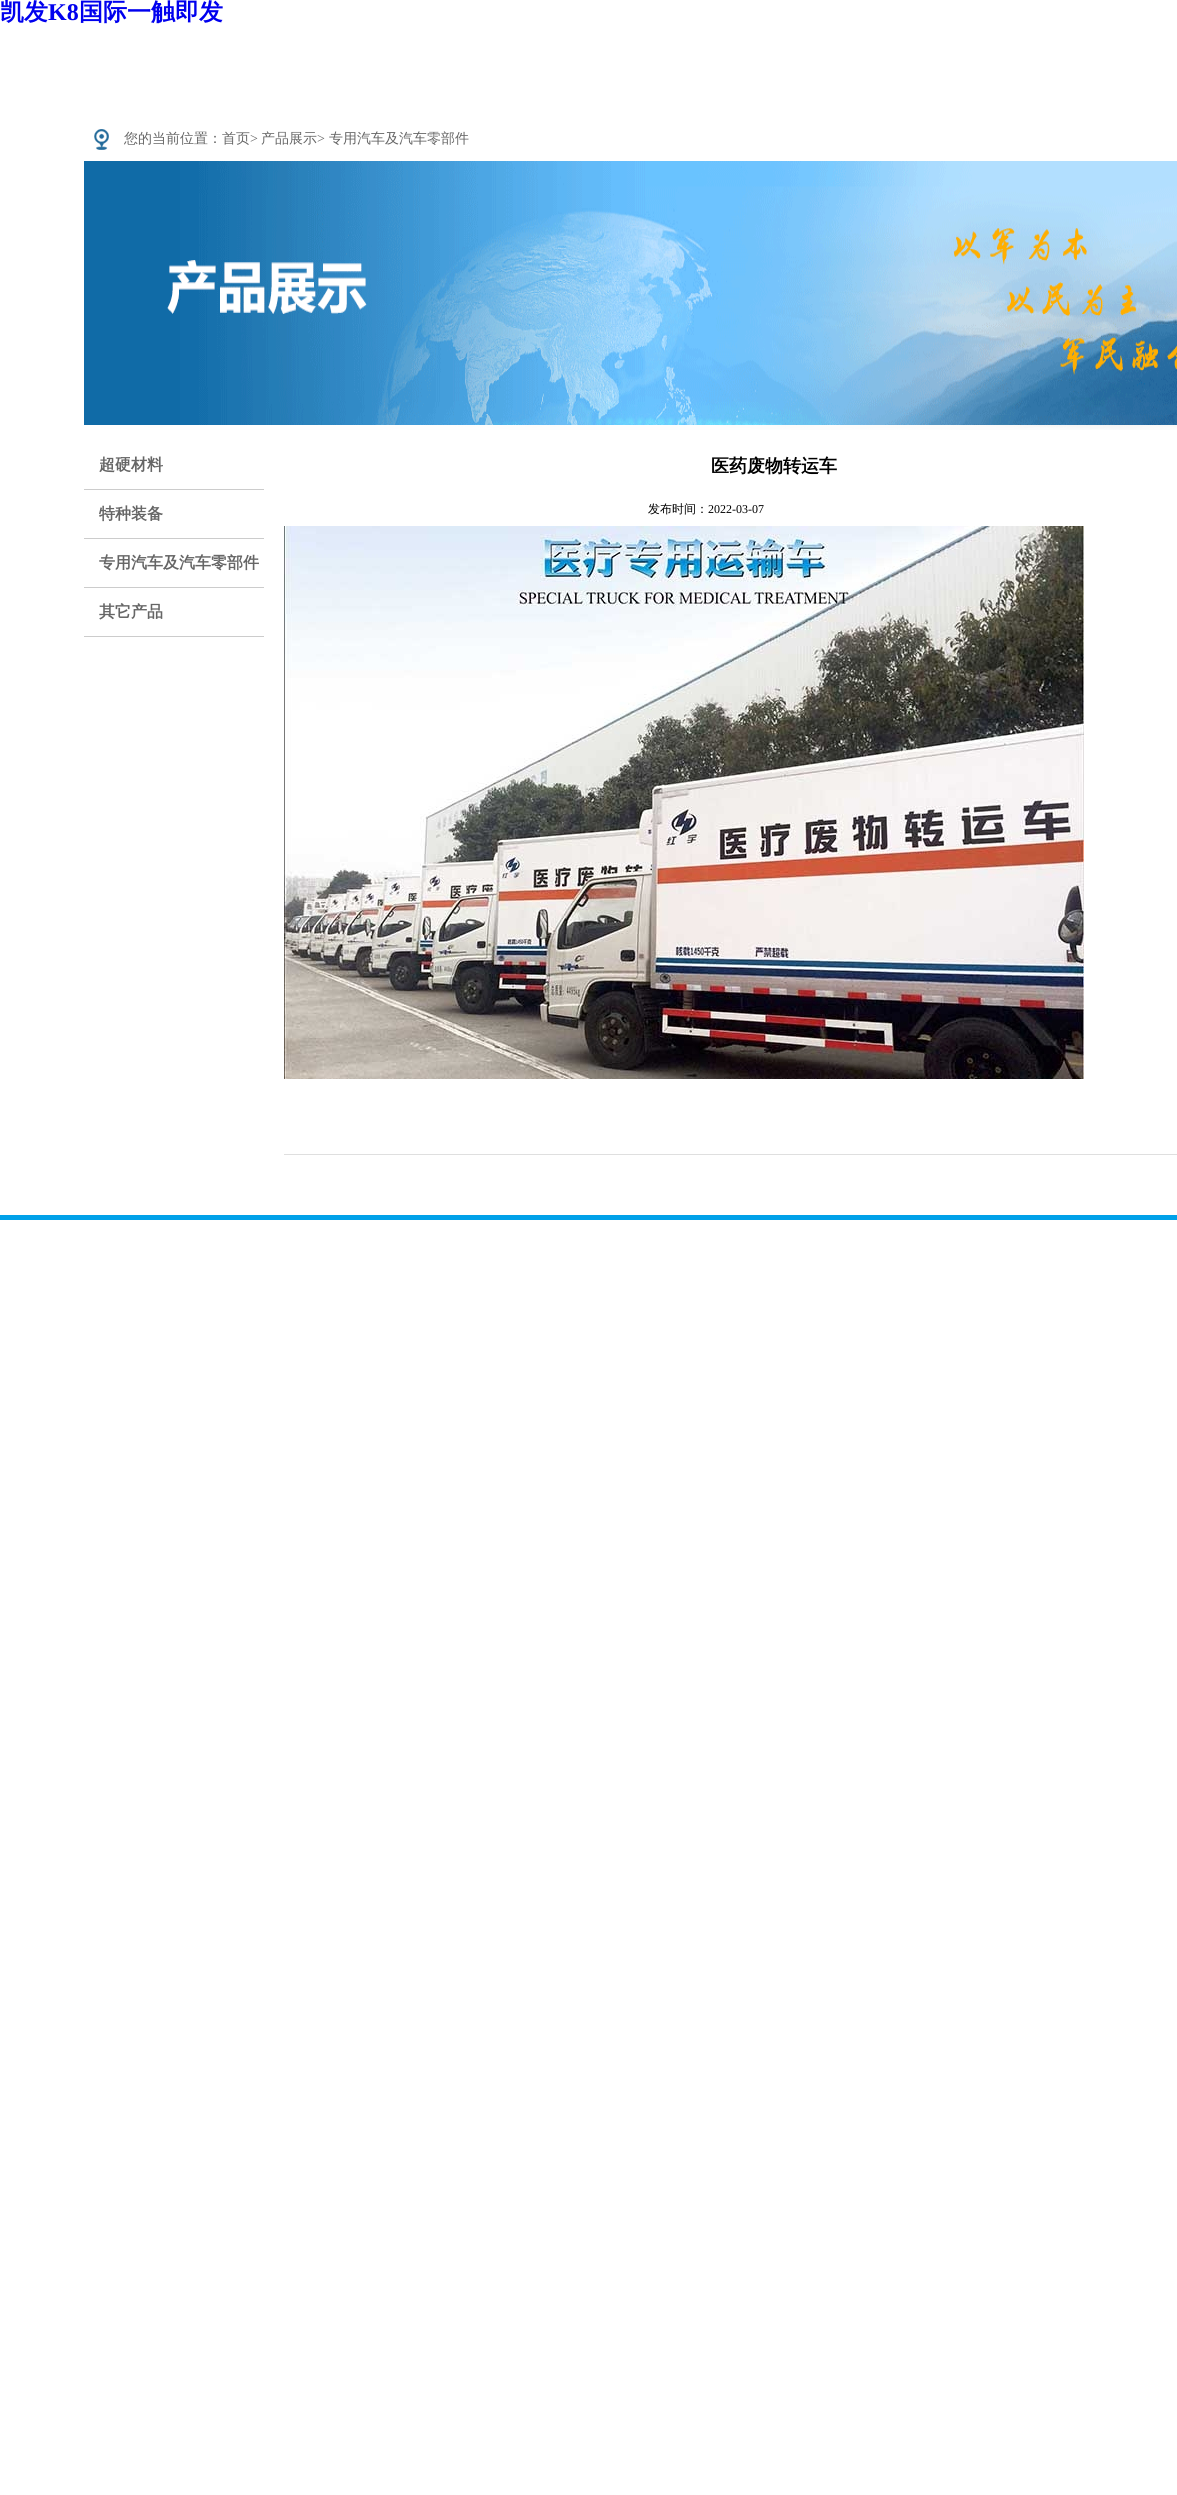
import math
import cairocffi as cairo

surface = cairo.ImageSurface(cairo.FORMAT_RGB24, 1177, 2495)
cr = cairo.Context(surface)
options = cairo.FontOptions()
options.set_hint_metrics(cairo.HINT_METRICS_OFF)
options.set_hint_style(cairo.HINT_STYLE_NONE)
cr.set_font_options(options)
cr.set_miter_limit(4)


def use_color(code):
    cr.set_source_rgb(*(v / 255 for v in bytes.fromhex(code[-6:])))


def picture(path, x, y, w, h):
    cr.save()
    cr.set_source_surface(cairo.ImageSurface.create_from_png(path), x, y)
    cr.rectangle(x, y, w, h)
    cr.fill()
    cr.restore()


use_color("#ffffff")
cr.paint()
cr.select_font_face("WenQuanYi Zen Hei", cairo.FONT_SLANT_NORMAL, cairo.FONT_WEIGHT_BOLD)
cr.set_font_size(24)
use_color("#0000ee")
cr.move_to(0, 20)
cr.show_text("凯发")
cr.select_font_face("Liberation Serif", cairo.FONT_SLANT_NORMAL, cairo.FONT_WEIGHT_BOLD)
cr.move_to(48, 20)
cr.show_text("K8")
cr.select_font_face("WenQuanYi Zen Hei", cairo.FONT_SLANT_NORMAL, cairo.FONT_WEIGHT_BOLD)
cr.move_to(79, 20)
cr.show_text("国际一触即发")
picture("img1.png", 94, 129, 15, 21)
cr.select_font_face("WenQuanYi Zen Hei Medium")
cr.set_font_size(14)
use_color("#666666")
cr.move_to(124, 143)
cr.show_text("您的当前位置：首页")
cr.select_font_face("Liberation Serif")
cr.move_to(250, 143)
cr.show_text(">")
cr.select_font_face("WenQuanYi Zen Hei Medium")
cr.move_to(261, 143)
cr.show_text("产品展示")
cr.select_font_face("Liberation Serif")
cr.move_to(317, 143)
cr.show_text(">")
cr.select_font_face("WenQuanYi Zen Hei Medium")
cr.move_to(329, 143)
cr.show_text("专用汽车及汽车零部件")
picture("img2.png", 84, 161, 1093, 264)
picture("img3.png", 84, 425, 1093, 5)
use_color("#cccccc")
cr.rectangle(84, 489, 180, 1)
cr.fill()
cr.select_font_face("WenQuanYi Zen Hei", cairo.FONT_SLANT_NORMAL, cairo.FONT_WEIGHT_BOLD)
cr.set_font_size(16)
use_color("#666666")
cr.move_to(99, 470)
cr.show_text("超硬材料")
use_color("#cccccc")
cr.rectangle(84, 538, 180, 1)
cr.fill()
use_color("#666666")
cr.move_to(99, 519)
cr.show_text("特种装备")
use_color("#cccccc")
cr.rectangle(84, 587, 180, 1)
cr.fill()
use_color("#666666")
cr.move_to(99, 568)
cr.show_text("专用汽车及汽车零部件")
use_color("#cccccc")
cr.rectangle(84, 636, 180, 1)
cr.fill()
use_color("#666666")
cr.move_to(99, 617)
cr.show_text("其它产品")
cr.set_font_size(18)
use_color("#000000")
cr.move_to(711, 472)
cr.show_text("医药废物转运车")
cr.select_font_face("WenQuanYi Zen Hei Medium")
cr.set_font_size(12)
cr.move_to(648, 513)
cr.show_text("发布时间：")
cr.select_font_face("Liberation Serif")
cr.move_to(708, 513)
cr.show_text("2022-03-07")
picture("img4.png", 284, 526, 800, 553)
use_color("#dfdfdf")
cr.rectangle(284, 1154, 893, 1)
cr.fill()
use_color("#00a1e9")
cr.rectangle(0, 1215, 1177, 5)
cr.fill()
surface.write_to_png("result.png")
